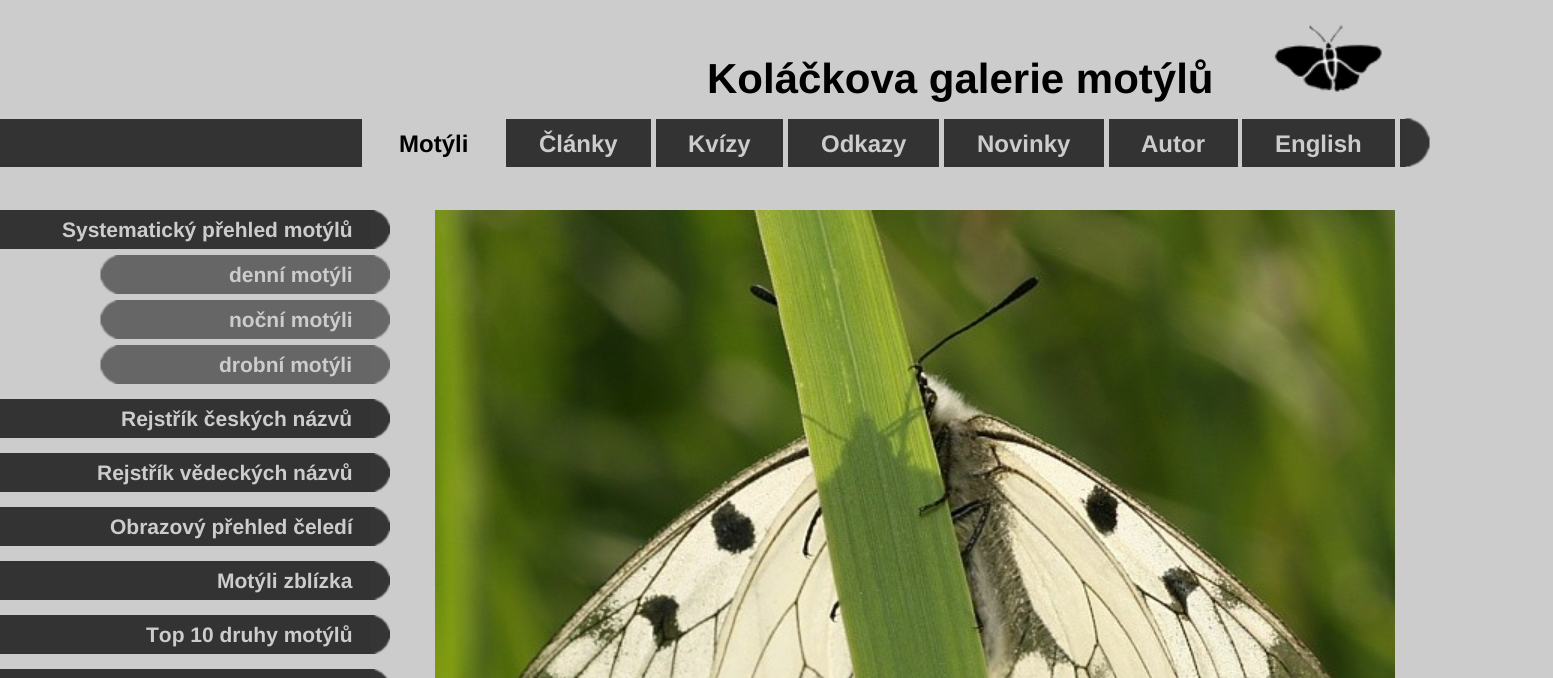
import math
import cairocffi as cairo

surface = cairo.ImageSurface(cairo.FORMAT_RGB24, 1553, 678)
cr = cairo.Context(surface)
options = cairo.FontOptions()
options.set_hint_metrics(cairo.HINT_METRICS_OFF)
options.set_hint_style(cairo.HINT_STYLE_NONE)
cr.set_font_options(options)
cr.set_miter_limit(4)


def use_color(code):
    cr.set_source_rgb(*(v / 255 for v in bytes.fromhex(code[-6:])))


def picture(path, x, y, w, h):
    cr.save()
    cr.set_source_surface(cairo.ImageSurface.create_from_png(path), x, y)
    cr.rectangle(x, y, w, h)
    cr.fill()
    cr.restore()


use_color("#cccccc")
cr.paint()
cr.select_font_face("Liberation Sans", cairo.FONT_SLANT_NORMAL, cairo.FONT_WEIGHT_BOLD)
cr.set_font_size(42)
use_color("#000000")
cr.move_to(707, 93)
cr.show_text("Koláčkova galerie motýlů")
picture("img1.png", 1274, 25, 108, 67)
use_color("#333333")
cr.rectangle(0, 119, 1406, 48)
cr.fill()
use_color("#cccccc")
cr.rectangle(362, 119, 144, 48)
cr.fill()
cr.rectangle(651, 119, 5, 48)
cr.fill()
cr.set_font_size(24)
cr.move_to(539, 152)
cr.show_text("Články")
use_color("#000000")
cr.move_to(399, 152)
cr.show_text("Motýli")
use_color("#cccccc")
cr.rectangle(783, 119, 5, 48)
cr.fill()
cr.move_to(688, 152)
cr.show_text("Kvízy")
cr.rectangle(939, 119, 5, 48)
cr.fill()
cr.move_to(821, 152)
cr.show_text("Odkazy")
cr.rectangle(1104, 119, 5, 48)
cr.fill()
cr.move_to(977, 152)
cr.show_text("Novinky")
cr.rectangle(1238, 119, 4, 48)
cr.fill()
cr.move_to(1141, 152)
cr.show_text("Autor")
cr.rectangle(1395, 119, 5, 48)
cr.fill()
cr.move_to(1275, 152)
cr.show_text("English")
picture("img2.png", 1405, 118, 25, 49)
use_color("#333333")
cr.rectangle(0, 210, 371, 39)
cr.fill()
cr.set_font_size(21)
use_color("#cccccc")
cr.move_to(62, 237)
cr.show_text("Systematický přehled motýlů")
picture("img3.png", 371, 210, 19, 39)
picture("img4.png", 100, 255, 20, 39)
use_color("#666666")
cr.rectangle(120, 255, 251, 39)
cr.fill()
use_color("#cccccc")
cr.move_to(229, 282)
cr.show_text("denní motýli")
picture("img5.png", 371, 255, 19, 39)
picture("img4.png", 100, 300, 20, 39)
use_color("#666666")
cr.rectangle(120, 300, 251, 39)
cr.fill()
use_color("#cccccc")
cr.move_to(229, 327)
cr.show_text("noční motýli")
picture("img5.png", 371, 300, 19, 39)
picture("img4.png", 100, 345, 20, 39)
use_color("#666666")
cr.rectangle(120, 345, 251, 39)
cr.fill()
use_color("#cccccc")
cr.move_to(219, 372)
cr.show_text("drobní motýli")
picture("img5.png", 371, 345, 19, 39)
use_color("#333333")
cr.rectangle(0, 399, 371, 39)
cr.fill()
use_color("#cccccc")
cr.move_to(121, 426)
cr.show_text("Rejstřík českých názvů")
picture("img3.png", 371, 399, 19, 39)
use_color("#333333")
cr.rectangle(0, 453, 371, 39)
cr.fill()
use_color("#cccccc")
cr.move_to(97, 480)
cr.show_text("Rejstřík vědeckých názvů")
picture("img3.png", 371, 453, 19, 39)
use_color("#333333")
cr.rectangle(0, 507, 371, 39)
cr.fill()
use_color("#cccccc")
cr.move_to(110, 534)
cr.show_text("Obrazový přehled čeledí")
picture("img3.png", 371, 507, 19, 39)
use_color("#333333")
cr.rectangle(0, 561, 371, 39)
cr.fill()
use_color("#cccccc")
cr.move_to(217, 588)
cr.show_text("Motýli zblízka")
picture("img3.png", 371, 561, 19, 39)
use_color("#333333")
cr.rectangle(0, 615, 371, 39)
cr.fill()
use_color("#cccccc")
cr.move_to(146, 642)
cr.show_text("Top 10 druhy motýlů")
picture("img3.png", 371, 615, 19, 39)
use_color("#333333")
cr.rectangle(0, 669, 371, 9)
cr.fill()
picture("img6.png", 371, 669, 17, 9)
picture("img7.png", 435, 210, 960, 468)
surface.write_to_png("result.png")
